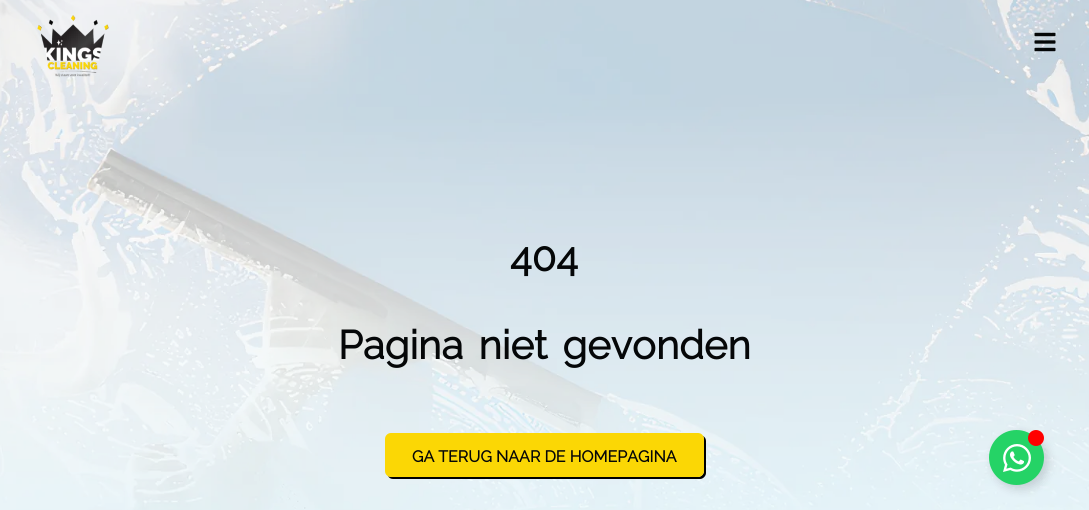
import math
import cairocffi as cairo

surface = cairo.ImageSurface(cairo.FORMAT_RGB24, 1089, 510)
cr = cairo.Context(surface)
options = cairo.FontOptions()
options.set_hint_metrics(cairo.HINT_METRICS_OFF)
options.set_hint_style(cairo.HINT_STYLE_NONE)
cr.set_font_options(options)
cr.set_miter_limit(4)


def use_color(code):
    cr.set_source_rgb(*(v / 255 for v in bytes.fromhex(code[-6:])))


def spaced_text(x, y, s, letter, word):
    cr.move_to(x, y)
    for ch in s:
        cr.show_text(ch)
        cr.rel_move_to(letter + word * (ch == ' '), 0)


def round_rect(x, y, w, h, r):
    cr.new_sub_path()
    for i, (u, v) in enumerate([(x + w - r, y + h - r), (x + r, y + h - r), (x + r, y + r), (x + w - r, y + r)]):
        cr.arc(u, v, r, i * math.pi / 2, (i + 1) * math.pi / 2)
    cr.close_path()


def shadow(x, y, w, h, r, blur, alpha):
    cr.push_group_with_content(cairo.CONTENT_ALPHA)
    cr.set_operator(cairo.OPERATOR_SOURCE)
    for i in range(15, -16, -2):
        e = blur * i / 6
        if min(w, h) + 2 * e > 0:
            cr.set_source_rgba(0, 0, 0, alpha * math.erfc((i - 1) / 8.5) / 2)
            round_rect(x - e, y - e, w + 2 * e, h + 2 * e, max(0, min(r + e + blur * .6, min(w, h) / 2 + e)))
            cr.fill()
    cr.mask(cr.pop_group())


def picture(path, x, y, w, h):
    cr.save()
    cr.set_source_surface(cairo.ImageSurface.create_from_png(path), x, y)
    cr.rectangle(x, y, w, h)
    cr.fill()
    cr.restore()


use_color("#ffffff")
cr.paint()
picture("img3.png", 0, 0, 1089, 510)
picture("img1.png", 37, 15, 72, 62)
picture("img2.png", 1034, 32, 22, 20)
cr.select_font_face("Raleway", cairo.FONT_SLANT_NORMAL, cairo.FONT_WEIGHT_BOLD)
cr.set_font_size(40)
use_color("#050708")
cr.move_to(510, 271)
cr.show_text("404")
spaced_text(338, 359, "Pagina niet gevonden", 0, 5)
use_color("#000000")
cr.new_path()
cr.move_to(388, 476)
cr.curve_to(389, 478, 391, 479, 393, 479)
cr.line_to(700, 479)
cr.curve_to(703, 479, 706, 476, 706, 473)
cr.line_to(706, 441)
cr.curve_to(706, 439, 705, 437, 703, 436)
cr.line_to(704, 439)
cr.line_to(704, 471)
cr.curve_to(704, 474, 701, 477, 698, 477)
cr.line_to(391, 477)
cr.close_path()
cr.fill()
use_color("#fbd705")
round_rect(385, 433, 319, 44, 6)
cr.fill()
cr.set_font_size(16)
use_color("#050708")
cr.move_to(412, 462)
cr.show_text("GA TERUG NAAR DE HOMEPAGINA")
use_color("#000000")
shadow(993, 434, 55, 55, 27.5, 5, 0.15)
use_color("#25d366")
cr.arc(1016.5, 457.5, 27.5, 0, 2 * math.pi)
cr.fill()
picture("img4.png", 1003, 444, 28, 28)
use_color("#ff0000")
cr.arc(1036, 438, 8, 0, 2 * math.pi)
cr.fill()
surface.write_to_png("result.png")
